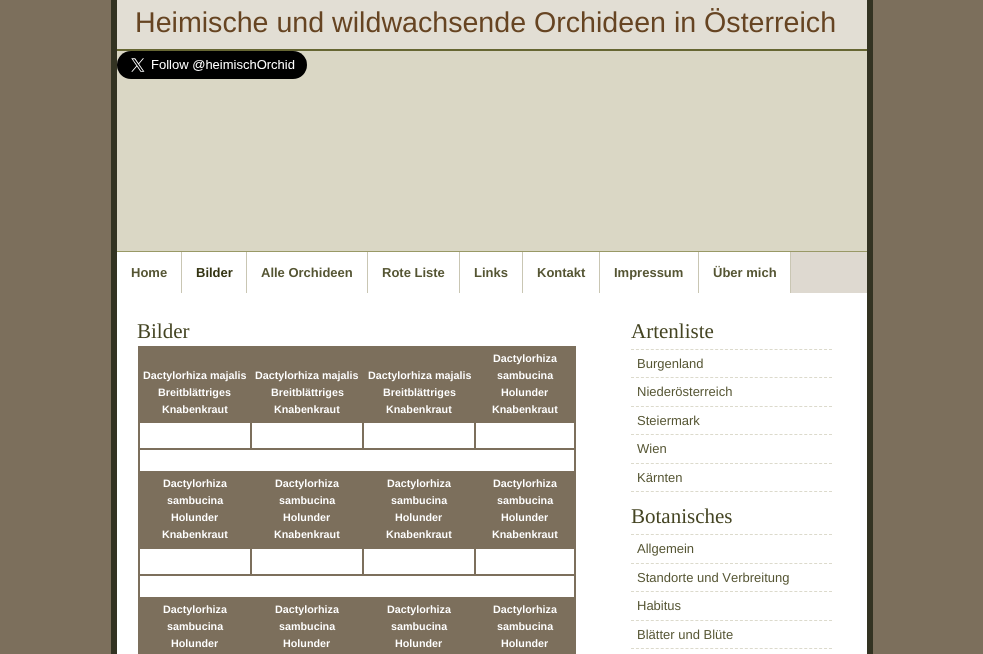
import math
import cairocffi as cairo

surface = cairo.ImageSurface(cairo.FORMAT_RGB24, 983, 654)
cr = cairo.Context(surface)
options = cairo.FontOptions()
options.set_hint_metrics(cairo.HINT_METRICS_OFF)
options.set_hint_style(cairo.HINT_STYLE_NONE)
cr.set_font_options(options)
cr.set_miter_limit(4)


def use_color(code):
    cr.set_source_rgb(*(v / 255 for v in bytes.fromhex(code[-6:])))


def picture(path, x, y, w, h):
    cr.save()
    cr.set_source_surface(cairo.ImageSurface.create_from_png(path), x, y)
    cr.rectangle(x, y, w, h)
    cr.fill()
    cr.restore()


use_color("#7c6f5c")
cr.paint()
use_color("#333322")
cr.rectangle(111, 0, 762, 654)
cr.fill()
use_color("#e2ded4")
cr.rectangle(117, 0, 750, 49)
cr.fill()
cr.select_font_face("Liberation Sans")
cr.set_font_size(28.6)
use_color("#664422")
cr.move_to(135, 32)
cr.show_text("Heimische und wildwachsende Orchideen in Österreich")
use_color("#dad7c5")
cr.rectangle(117, 51, 750, 200)
cr.fill()
use_color("#666633")
cr.rectangle(117, 49, 750, 2)
cr.fill()
picture("img1.png", 117, 51, 190, 28)
use_color("#ded9d0")
cr.rectangle(791, 252, 76, 41)
cr.fill()
use_color("#999966")
cr.rectangle(117, 251, 750, 1)
cr.fill()
use_color("#ffffff")
cr.rectangle(117, 252, 64, 41)
cr.fill()
use_color("#c9c6b3")
cr.rectangle(181, 252, 1, 41)
cr.fill()
cr.select_font_face("Liberation Sans", cairo.FONT_SLANT_NORMAL, cairo.FONT_WEIGHT_BOLD)
cr.set_font_size(13)
use_color("#555533")
cr.move_to(131, 277)
cr.show_text("Home")
use_color("#ffffff")
cr.rectangle(182, 252, 64, 41)
cr.fill()
use_color("#c9c6b3")
cr.rectangle(246, 252, 1, 41)
cr.fill()
use_color("#333311")
cr.move_to(196, 277)
cr.show_text("Bilder")
use_color("#ffffff")
cr.rectangle(247, 252, 120, 41)
cr.fill()
use_color("#c9c6b3")
cr.rectangle(367, 252, 1, 41)
cr.fill()
use_color("#555533")
cr.move_to(261, 277)
cr.show_text("Alle Orchideen")
use_color("#ffffff")
cr.rectangle(368, 252, 91, 41)
cr.fill()
use_color("#c9c6b3")
cr.rectangle(459, 252, 1, 41)
cr.fill()
use_color("#555533")
cr.move_to(382, 277)
cr.show_text("Rote Liste")
use_color("#ffffff")
cr.rectangle(460, 252, 62, 41)
cr.fill()
use_color("#c9c6b3")
cr.rectangle(522, 252, 1, 41)
cr.fill()
use_color("#555533")
cr.move_to(474, 277)
cr.show_text("Links")
use_color("#ffffff")
cr.rectangle(523, 252, 76, 41)
cr.fill()
use_color("#c9c6b3")
cr.rectangle(599, 252, 1, 41)
cr.fill()
use_color("#555533")
cr.move_to(537, 277)
cr.show_text("Kontakt")
use_color("#ffffff")
cr.rectangle(600, 252, 98, 41)
cr.fill()
use_color("#c9c6b3")
cr.rectangle(698, 252, 1, 41)
cr.fill()
use_color("#555533")
cr.move_to(614, 277)
cr.show_text("Impressum")
use_color("#ffffff")
cr.rectangle(699, 252, 91, 41)
cr.fill()
use_color("#c9c6b3")
cr.rectangle(790, 252, 1, 41)
cr.fill()
use_color("#555533")
cr.move_to(713, 277)
cr.show_text("Über mich")
use_color("#ffffff")
cr.rectangle(117, 293, 750, 361)
cr.fill()
cr.select_font_face("Liberation Serif")
cr.set_font_size(21)
use_color("#444422")
cr.move_to(137, 338)
cr.show_text("Bilder")
use_color("#7c6f5c")
cr.rectangle(138, 346, 438, 308)
cr.fill()
cr.select_font_face("Liberation Sans", cairo.FONT_SLANT_NORMAL, cairo.FONT_WEIGHT_BOLD)
cr.set_font_size(10.75)
use_color("#ffffff")
cr.move_to(143, 379)
cr.show_text("Dactylorhiza majalis")
cr.move_to(158, 396)
cr.show_text("Breitblättriges")
cr.move_to(162, 413)
cr.show_text("Knabenkraut")
cr.move_to(255, 379)
cr.show_text("Dactylorhiza majalis")
cr.move_to(271, 396)
cr.show_text("Breitblättriges")
cr.move_to(274, 413)
cr.show_text("Knabenkraut")
cr.move_to(368, 379)
cr.show_text("Dactylorhiza majalis")
cr.move_to(383, 396)
cr.show_text("Breitblättriges")
cr.move_to(386, 413)
cr.show_text("Knabenkraut")
cr.move_to(493, 362)
cr.show_text("Dactylorhiza")
cr.move_to(497, 379)
cr.show_text("sambucina")
cr.move_to(501, 396)
cr.show_text("Holunder")
cr.move_to(492, 413)
cr.show_text("Knabenkraut")
cr.rectangle(140, 423, 110, 25)
cr.fill()
cr.rectangle(252, 423, 110, 25)
cr.fill()
cr.rectangle(364, 423, 110, 25)
cr.fill()
cr.rectangle(476, 423, 98, 25)
cr.fill()
cr.rectangle(140, 450, 434, 21)
cr.fill()
cr.move_to(163, 487)
cr.show_text("Dactylorhiza")
cr.move_to(167, 504)
cr.show_text("sambucina")
cr.move_to(171, 521)
cr.show_text("Holunder")
cr.move_to(162, 538)
cr.show_text("Knabenkraut")
cr.move_to(275, 487)
cr.show_text("Dactylorhiza")
cr.move_to(279, 504)
cr.show_text("sambucina")
cr.move_to(283, 521)
cr.show_text("Holunder")
cr.move_to(274, 538)
cr.show_text("Knabenkraut")
cr.move_to(387, 487)
cr.show_text("Dactylorhiza")
cr.move_to(391, 504)
cr.show_text("sambucina")
cr.move_to(395, 521)
cr.show_text("Holunder")
cr.move_to(386, 538)
cr.show_text("Knabenkraut")
cr.move_to(493, 487)
cr.show_text("Dactylorhiza")
cr.move_to(497, 504)
cr.show_text("sambucina")
cr.move_to(501, 521)
cr.show_text("Holunder")
cr.move_to(492, 538)
cr.show_text("Knabenkraut")
cr.rectangle(140, 549, 110, 25)
cr.fill()
cr.rectangle(252, 549, 110, 25)
cr.fill()
cr.rectangle(364, 549, 110, 25)
cr.fill()
cr.rectangle(476, 549, 98, 25)
cr.fill()
cr.rectangle(140, 576, 434, 21)
cr.fill()
cr.move_to(163, 613)
cr.show_text("Dactylorhiza")
cr.move_to(167, 630)
cr.show_text("sambucina")
cr.move_to(171, 647)
cr.show_text("Holunder")
cr.move_to(275, 613)
cr.show_text("Dactylorhiza")
cr.move_to(279, 630)
cr.show_text("sambucina")
cr.move_to(283, 647)
cr.show_text("Holunder")
cr.move_to(387, 613)
cr.show_text("Dactylorhiza")
cr.move_to(391, 630)
cr.show_text("sambucina")
cr.move_to(395, 647)
cr.show_text("Holunder")
cr.move_to(493, 613)
cr.show_text("Dactylorhiza")
cr.move_to(497, 630)
cr.show_text("sambucina")
cr.move_to(501, 647)
cr.show_text("Holunder")
cr.select_font_face("Liberation Serif")
cr.set_font_size(21)
use_color("#444422")
cr.move_to(631, 338)
cr.show_text("Artenliste")
cr.new_path()
cr.move_to(631, 349.5)
cr.line_to(832, 349.5)
use_color("#dcdacc")
cr.set_line_width(1)
cr.set_dash([3, 1.95])
cr.stroke()
cr.new_path()
cr.move_to(631, 377.5)
cr.line_to(832, 377.5)
cr.stroke()
cr.select_font_face("Liberation Sans")
cr.set_font_size(13)
use_color("#555533")
cr.move_to(637, 368)
cr.show_text("Burgenland")
cr.new_path()
cr.move_to(631, 406.5)
cr.line_to(832, 406.5)
use_color("#dcdacc")
cr.stroke()
use_color("#555533")
cr.move_to(637, 396)
cr.show_text("Niederösterreich")
cr.new_path()
cr.move_to(631, 434.5)
cr.line_to(832, 434.5)
use_color("#dcdacc")
cr.stroke()
use_color("#555533")
cr.move_to(637, 425)
cr.show_text("Steiermark")
cr.new_path()
cr.move_to(631, 463.5)
cr.line_to(832, 463.5)
use_color("#dcdacc")
cr.stroke()
use_color("#555533")
cr.move_to(637, 453)
cr.show_text("Wien")
cr.new_path()
cr.move_to(631, 491.5)
cr.line_to(832, 491.5)
use_color("#dcdacc")
cr.stroke()
use_color("#555533")
cr.move_to(637, 482)
cr.show_text("Kärnten")
cr.select_font_face("Liberation Serif")
cr.set_font_size(21)
use_color("#444422")
cr.move_to(631, 523)
cr.show_text("Botanisches")
cr.new_path()
cr.move_to(631, 534.5)
cr.line_to(832, 534.5)
use_color("#dcdacc")
cr.stroke()
cr.new_path()
cr.move_to(631, 563.5)
cr.line_to(832, 563.5)
cr.stroke()
cr.select_font_face("Liberation Sans")
cr.set_font_size(13)
use_color("#555533")
cr.move_to(637, 553)
cr.show_text("Allgemein")
cr.new_path()
cr.move_to(631, 591.5)
cr.line_to(832, 591.5)
use_color("#dcdacc")
cr.stroke()
use_color("#555533")
cr.move_to(637, 582)
cr.show_text("Standorte und Verbreitung")
cr.new_path()
cr.move_to(631, 620.5)
cr.line_to(832, 620.5)
use_color("#dcdacc")
cr.stroke()
use_color("#555533")
cr.move_to(637, 610)
cr.show_text("Habitus")
cr.new_path()
cr.move_to(631, 648.5)
cr.line_to(832, 648.5)
use_color("#dcdacc")
cr.stroke()
use_color("#555533")
cr.move_to(637, 639)
cr.show_text("Blätter und Blüte")
surface.write_to_png("result.png")
